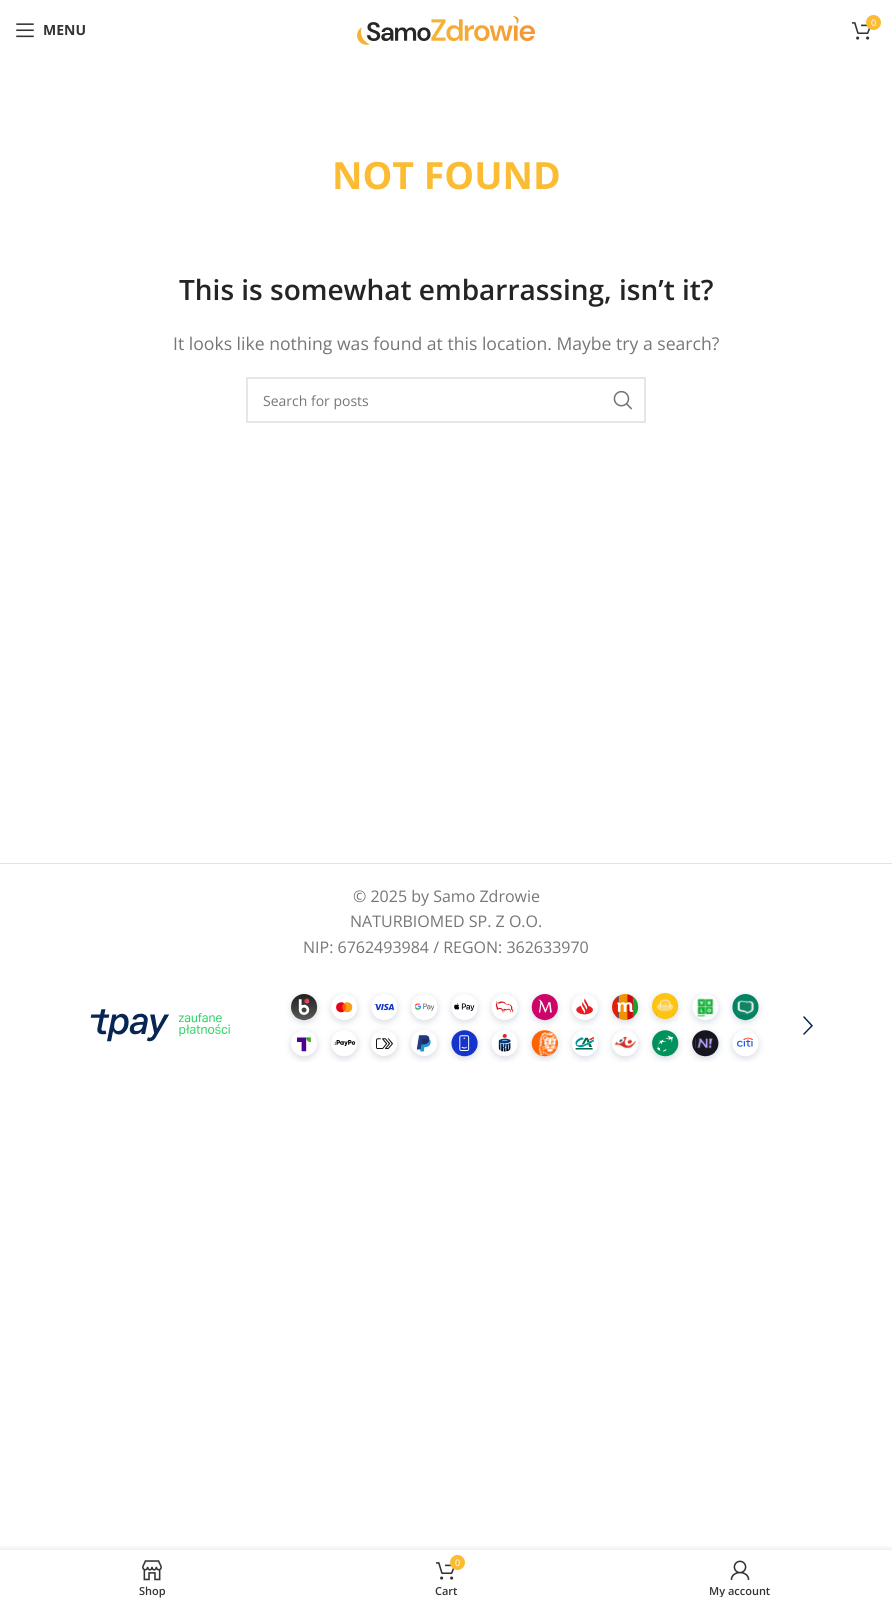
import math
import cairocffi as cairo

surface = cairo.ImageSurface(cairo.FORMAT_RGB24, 892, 1605)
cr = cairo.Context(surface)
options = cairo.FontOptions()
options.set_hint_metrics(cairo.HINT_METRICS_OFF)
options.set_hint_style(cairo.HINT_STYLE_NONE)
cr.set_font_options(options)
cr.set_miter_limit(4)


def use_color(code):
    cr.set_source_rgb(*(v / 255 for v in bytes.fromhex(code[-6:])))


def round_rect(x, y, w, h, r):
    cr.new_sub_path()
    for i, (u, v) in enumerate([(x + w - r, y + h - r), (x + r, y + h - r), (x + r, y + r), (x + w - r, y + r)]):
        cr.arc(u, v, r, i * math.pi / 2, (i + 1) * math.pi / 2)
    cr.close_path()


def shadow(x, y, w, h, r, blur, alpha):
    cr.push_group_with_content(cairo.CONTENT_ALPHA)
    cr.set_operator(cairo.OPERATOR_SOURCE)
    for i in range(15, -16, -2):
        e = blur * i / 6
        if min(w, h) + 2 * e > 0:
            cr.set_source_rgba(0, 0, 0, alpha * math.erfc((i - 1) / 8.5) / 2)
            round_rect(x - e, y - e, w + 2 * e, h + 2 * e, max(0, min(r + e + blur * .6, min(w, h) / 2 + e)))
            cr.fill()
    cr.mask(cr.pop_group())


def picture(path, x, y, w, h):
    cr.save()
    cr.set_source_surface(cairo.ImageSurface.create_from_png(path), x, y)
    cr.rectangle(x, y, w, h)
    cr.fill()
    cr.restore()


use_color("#ffffff")
cr.paint()
picture("img1.png", 357, 16, 178, 29)
picture("img2.png", 852, 22, 19, 18)
use_color("#fbbc34")
cr.arc(873.5, 22.5, 7.5, 0, 2 * math.pi)
cr.fill()
cr.select_font_face("Open Sans")
cr.set_font_size(9)
use_color("#ffffff")
cr.move_to(871, 26)
cr.show_text("0")
picture("img3.png", 16, 23, 18, 15)
cr.select_font_face("Open Sans", cairo.FONT_SLANT_NORMAL, cairo.FONT_WEIGHT_BOLD)
cr.set_font_size(14)
use_color("#333333")
cr.move_to(43, 35)
cr.show_text("MENU")
cr.set_font_size(37.5)
use_color("#fbbc34")
cr.move_to(332, 189)
cr.show_text("NOT FOUND")
cr.select_font_face("Open Sans SemiBold")
cr.set_font_size(28)
use_color("#242424")
cr.move_to(179, 300)
cr.show_text("This is somewhat embarrassing, isn’t it?")
cr.select_font_face("Open Sans")
cr.set_font_size(17.6)
use_color("#767676")
cr.move_to(173, 350)
cr.show_text("It looks like nothing was found at this location. Maybe try a search?")
cr.rectangle(247, 378, 398, 44)
use_color("#e6e6e6")
cr.stroke()
cr.set_font_size(14)
use_color("#767676")
cr.move_to(263, 406)
cr.show_text("Search for posts")
picture("img4.png", 613, 390, 20, 20)
use_color("#e4e4e4")
cr.rectangle(0, 863, 892, 1)
cr.fill()
cr.set_font_size(16)
use_color("#767676")
cr.move_to(353, 902)
cr.show_text("© 2025 by Samo Zdrowie")
cr.move_to(350, 927)
cr.show_text("NATURBIOMED SP. Z O.O.")
cr.move_to(303, 953)
cr.show_text("NIP: 6762493984 / REGON: 362633970")
picture("img5.png", 90, 992, 723, 70)
cr.save()
cr.rectangle(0, 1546, 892, 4)
cr.clip()
use_color("#000000")
shadow(0, 1550, 892, 55, 0, 4.5, 0.12)
cr.restore()
picture("img6.png", 142, 1560, 20, 21)
cr.select_font_face("Open Sans SemiBold")
cr.set_font_size(11)
use_color("#333333")
cr.move_to(139, 1595)
cr.show_text("Shop")
picture("img2.png", 436, 1562, 19, 18)
use_color("#fbbc34")
cr.arc(457.5, 1562.5, 7.5, 0, 2 * math.pi)
cr.fill()
cr.select_font_face("Open Sans")
cr.set_font_size(9)
use_color("#ffffff")
cr.move_to(455, 1566)
cr.show_text("0")
cr.select_font_face("Open Sans SemiBold")
cr.set_font_size(11)
use_color("#333333")
cr.move_to(435, 1595)
cr.show_text("Cart")
picture("img7.png", 730, 1560, 20, 20)
cr.save()
cr.rectangle(603, 1584, 274, 13)
cr.clip()
cr.move_to(709, 1595)
cr.show_text("My account")
cr.restore()
surface.write_to_png("result.png")
